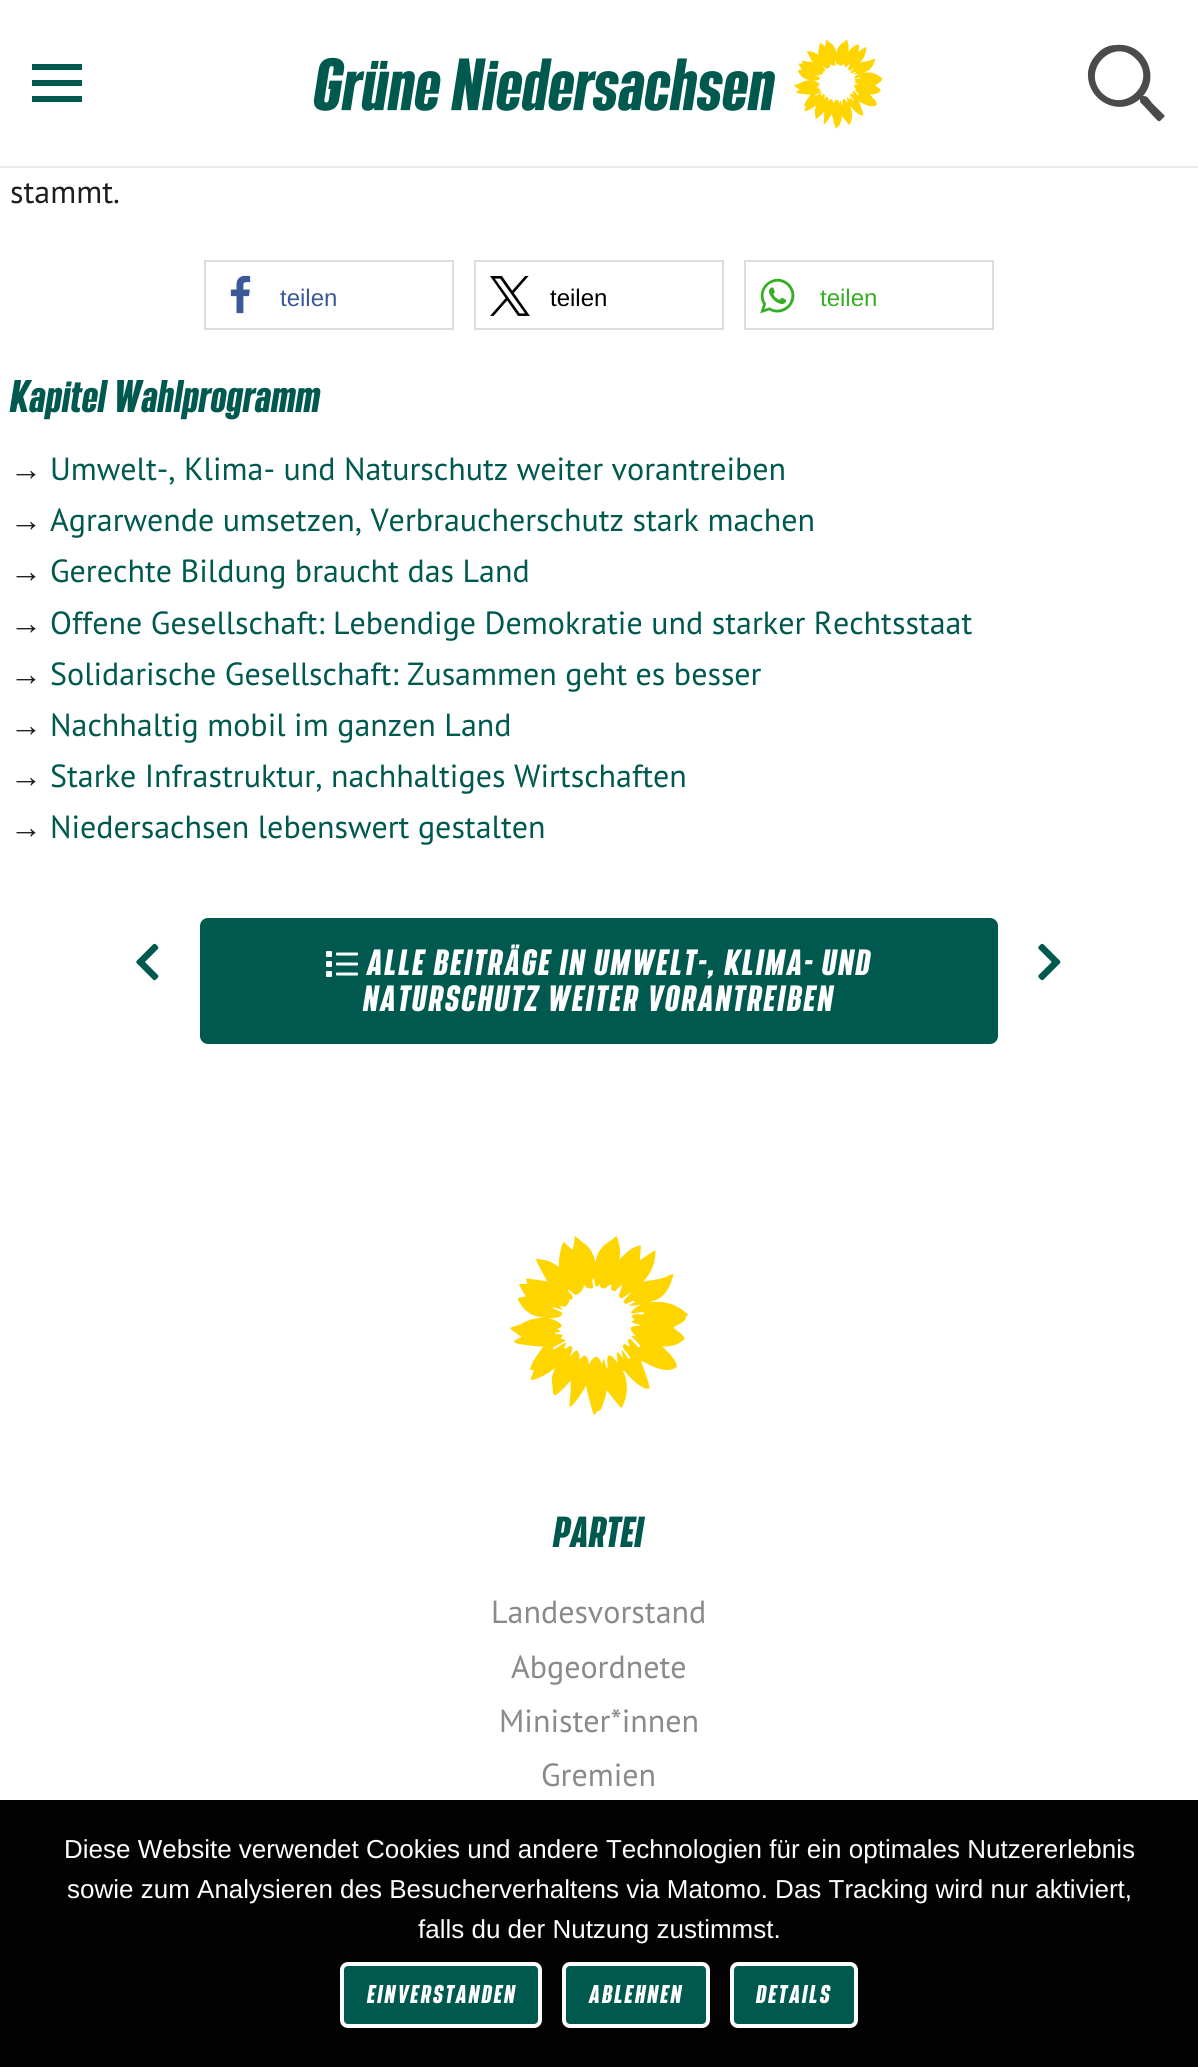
import math
import cairocffi as cairo

surface = cairo.ImageSurface(cairo.FORMAT_RGB24, 1198, 2067)
cr = cairo.Context(surface)
options = cairo.FontOptions()
options.set_hint_metrics(cairo.HINT_METRICS_OFF)
options.set_hint_style(cairo.HINT_STYLE_NONE)
cr.set_font_options(options)
cr.set_miter_limit(4)


def use_color(code):
    cr.set_source_rgb(*(v / 255 for v in bytes.fromhex(code[-6:])))


def spaced_text(x, y, s, letter, word):
    cr.move_to(x, y)
    for ch in s:
        cr.show_text(ch)
        cr.rel_move_to(letter + word * (ch == ' '), 0)


def round_rect(x, y, w, h, r):
    cr.new_sub_path()
    for i, (u, v) in enumerate([(x + w - r, y + h - r), (x + r, y + h - r), (x + r, y + r), (x + w - r, y + r)]):
        cr.arc(u, v, r, i * math.pi / 2, (i + 1) * math.pi / 2)
    cr.close_path()


def picture(path, x, y, w, h):
    cr.save()
    cr.set_source_surface(cairo.ImageSurface.create_from_png(path), x, y)
    cr.rectangle(x, y, w, h)
    cr.fill()
    cr.restore()


use_color("#ffffff")
cr.paint()
use_color("#e9e9e9")
cr.rectangle(0, 166, 1198, 2)
cr.fill()
use_color("#00594e")
cr.rectangle(32, 96, 50, 6)
cr.fill()
cr.rectangle(32, 80, 50, 6)
cr.fill()
cr.rectangle(32, 64, 50, 6)
cr.fill()
picture("img1.png", 313, 39, 570, 90)
use_color("#4b4b4b")
cr.new_path()
cr.move_to(1164, 115)
cr.curve_to(1166, 116, 1163, 118, 1162, 119)
cr.curve_to(1159, 123, 1158, 121, 1155, 118)
cr.line_to(1143, 105)
cr.curve_to(1140, 102, 1140, 103, 1140, 99)
cr.curve_to(1118, 118, 1086, 100, 1088, 72)
cr.curve_to(1089, 65, 1092, 59, 1097, 54)
cr.curve_to(1102, 48, 1109, 45, 1116, 45)
cr.curve_to(1144, 42, 1161, 75, 1143, 96)
cr.curve_to(1148, 96, 1148, 98, 1152, 103)
cr.close_path()
cr.move_to(1102, 93)
cr.curve_to(1125, 115, 1158, 81, 1136, 59)
cr.curve_to(1114, 36, 1080, 70, 1102, 93)
cr.close_path()
cr.fill()
cr.select_font_face("PT Sans")
cr.set_font_size(32)
use_color("#201d1b")
cr.move_to(10, 203)
cr.show_text("stammt.")
cr.rectangle(205, 261, 248, 68)
use_color("#dddddd")
cr.stroke()
picture("img2.png", 230, 275, 21, 39)
cr.select_font_face("Liberation Sans")
cr.set_font_size(24)
use_color("#3b5998")
cr.move_to(280, 306)
cr.show_text("teilen")
cr.rectangle(475, 261, 248, 68)
use_color("#dddddd")
cr.stroke()
picture("img3.png", 490, 276, 40, 40)
use_color("#000000")
cr.move_to(550, 306)
cr.show_text("teilen")
cr.rectangle(745, 261, 248, 68)
use_color("#dddddd")
cr.stroke()
picture("img4.png", 760, 278, 35, 36)
use_color("#34af23")
cr.move_to(820, 306)
cr.show_text("teilen")
cr.select_font_face("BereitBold", cairo.FONT_SLANT_NORMAL, cairo.FONT_WEIGHT_BOLD)
cr.set_font_size(40)
use_color("#00594e")
cr.move_to(10, 412)
cr.show_text("Kapitel Wahlprogramm")
cr.select_font_face("Liberation Serif")
cr.set_font_size(32)
use_color("#201d1b")
cr.move_to(10, 480)
cr.show_text("→")
cr.select_font_face("PT Sans")
use_color("#00594e")
cr.move_to(50, 480)
cr.show_text("Umwelt-, Klima- und Naturschutz weiter vorantreiben")
cr.select_font_face("Liberation Serif")
use_color("#201d1b")
cr.move_to(10, 531)
cr.show_text("→")
cr.select_font_face("PT Sans")
use_color("#00594e")
cr.move_to(50, 531)
cr.show_text("Agrarwende umsetzen, Verbraucherschutz stark machen")
cr.select_font_face("Liberation Serif")
use_color("#201d1b")
cr.move_to(10, 582)
cr.show_text("→")
cr.select_font_face("PT Sans")
use_color("#00594e")
cr.move_to(50, 582)
cr.show_text("Gerechte Bildung braucht das Land")
cr.select_font_face("Liberation Serif")
use_color("#201d1b")
cr.move_to(10, 634)
cr.show_text("→")
cr.select_font_face("PT Sans")
use_color("#00594e")
cr.move_to(50, 634)
cr.show_text("Offene Gesellschaft: Lebendige Demokratie und starker Rechtsstaat")
cr.select_font_face("Liberation Serif")
use_color("#201d1b")
cr.move_to(10, 685)
cr.show_text("→")
cr.select_font_face("PT Sans")
use_color("#00594e")
cr.move_to(50, 685)
cr.show_text("Solidarische Gesellschaft: Zusammen geht es besser")
cr.select_font_face("Liberation Serif")
use_color("#201d1b")
cr.move_to(10, 736)
cr.show_text("→")
cr.select_font_face("PT Sans")
use_color("#00594e")
cr.move_to(50, 736)
cr.show_text("Nachhaltig mobil im ganzen Land")
cr.select_font_face("Liberation Serif")
use_color("#201d1b")
cr.move_to(10, 787)
cr.show_text("→")
cr.select_font_face("PT Sans")
use_color("#00594e")
cr.move_to(50, 787)
cr.show_text("Starke Infrastruktur, nachhaltiges Wirtschaften")
cr.select_font_face("Liberation Serif")
use_color("#201d1b")
cr.move_to(10, 838)
cr.show_text("→")
cr.select_font_face("PT Sans")
use_color("#00594e")
cr.move_to(50, 838)
cr.show_text("Niedersachsen lebenswert gestalten")
picture("img5.png", 136, 943, 23, 38)
round_rect(200, 918, 798, 126, 8)
cr.fill()
picture("img6.png", 326, 951, 32, 26)
cr.select_font_face("BereitBold", cairo.FONT_SLANT_NORMAL, cairo.FONT_WEIGHT_BOLD)
use_color("#fefefe")
spaced_text(367, 975, "ALLE BEITRÄGE IN UMWELT-, KLIMA- UND", 2, 0)
spaced_text(363, 1011, "NATURSCHUTZ WEITER VORANTREIBEN", 2, 0)
picture("img7.png", 1038, 943, 23, 38)
picture("img8.png", 510, 1236, 178, 180)
cr.set_font_size(38)
use_color("#00594e")
cr.move_to(553, 1547)
cr.show_text("PARTEI")
cr.select_font_face("PT Sans")
cr.set_font_size(32)
use_color("#8a8a8a")
cr.move_to(491, 1623)
cr.show_text("Landesvorstand")
cr.move_to(511, 1678)
cr.show_text("Abgeordnete")
cr.move_to(499, 1732)
cr.show_text("Minister*innen")
cr.move_to(541, 1786)
cr.show_text("Gremien")
use_color("#020202")
cr.rectangle(0, 1800, 1198, 267)
cr.fill()
cr.select_font_face("Liberation Sans")
cr.set_font_size(26)
use_color("#fefefe")
cr.move_to(64, 1858)
cr.show_text("Diese Website verwendet Cookies und andere Technologien für ein optimales Nutzererlebnis")
cr.move_to(67, 1898)
cr.show_text("sowie zum Analysieren des Besucherverhaltens via Matomo. Das Tracking wird nur aktiviert,")
cr.move_to(418, 1938)
cr.show_text("falls du der Nutzung zustimmst.")
use_color("#00594e")
round_rect(342, 1964, 198, 62, 6)
cr.fill_preserve()
use_color("#fefefe")
cr.set_line_width(4)
cr.stroke()
cr.select_font_face("BereitBold", cairo.FONT_SLANT_NORMAL, cairo.FONT_WEIGHT_BOLD)
cr.set_font_size(22.5)
spaced_text(367, 2003, "EINVERSTANDEN", 2, 0)
use_color("#00594e")
round_rect(564, 1964, 144, 62, 6)
cr.fill_preserve()
use_color("#fefefe")
cr.stroke()
spaced_text(589, 2003, "ABLEHNEN", 2, 0)
use_color("#00594e")
round_rect(732, 1964, 124, 62, 6)
cr.fill_preserve()
use_color("#fefefe")
cr.stroke()
spaced_text(756, 2003, "DETAILS", 2, 0)
surface.write_to_png("result.png")
